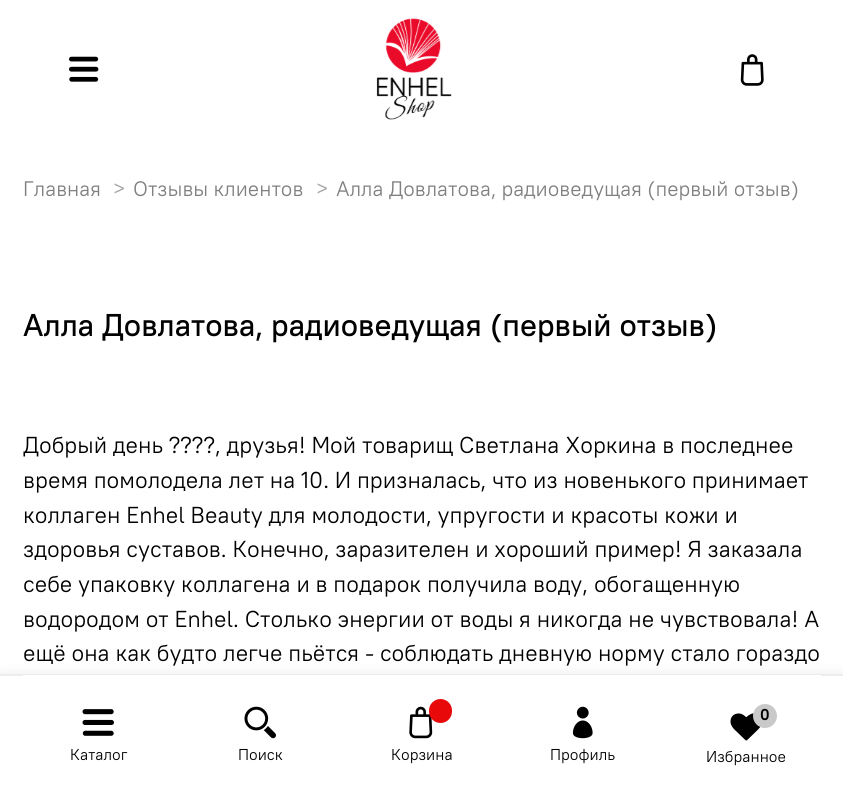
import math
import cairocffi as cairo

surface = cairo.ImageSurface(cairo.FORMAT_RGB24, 843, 801)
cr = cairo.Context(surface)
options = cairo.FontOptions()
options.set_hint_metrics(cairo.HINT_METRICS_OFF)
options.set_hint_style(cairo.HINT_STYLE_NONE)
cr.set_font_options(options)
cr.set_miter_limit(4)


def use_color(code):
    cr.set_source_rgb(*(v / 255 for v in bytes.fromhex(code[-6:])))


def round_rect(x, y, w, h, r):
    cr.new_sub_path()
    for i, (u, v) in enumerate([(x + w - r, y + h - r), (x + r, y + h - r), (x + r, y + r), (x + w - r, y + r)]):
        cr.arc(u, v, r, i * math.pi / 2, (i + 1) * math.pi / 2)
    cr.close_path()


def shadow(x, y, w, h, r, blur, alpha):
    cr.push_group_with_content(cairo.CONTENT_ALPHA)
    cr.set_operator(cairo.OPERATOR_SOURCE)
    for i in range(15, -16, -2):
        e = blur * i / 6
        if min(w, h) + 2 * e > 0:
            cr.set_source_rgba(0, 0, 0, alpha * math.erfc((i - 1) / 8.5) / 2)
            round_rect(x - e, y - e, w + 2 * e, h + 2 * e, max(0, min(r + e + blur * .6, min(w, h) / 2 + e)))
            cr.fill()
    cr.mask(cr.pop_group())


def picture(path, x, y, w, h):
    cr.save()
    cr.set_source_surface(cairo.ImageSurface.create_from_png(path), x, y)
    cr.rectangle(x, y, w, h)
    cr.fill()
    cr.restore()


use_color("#ffffff")
cr.paint()
picture("img1.png", 69, 56, 30, 26)
picture("img2.png", 376, 18, 76, 102)
picture("img3.png", 740, 54, 24, 32)
cr.select_font_face("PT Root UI")
cr.set_font_size(21)
use_color("#808080")
cr.move_to(23, 196)
cr.show_text("Главная")
use_color("#a6a6a6")
cr.move_to(113, 196)
cr.show_text(">")
use_color("#808080")
cr.move_to(133, 196)
cr.show_text("Отзывы клиентов")
use_color("#a6a6a6")
cr.move_to(316, 196)
cr.show_text(">")
use_color("#808080")
cr.move_to(336, 196)
cr.show_text("Алла Довлатова, радиоведущая (первый отзыв)")
cr.select_font_face("PT Root UI Medium")
cr.set_font_size(31.5)
use_color("#000000")
cr.move_to(23, 336)
cr.show_text("Алла Довлатова, радиоведущая (первый отзыв)")
cr.select_font_face("PT Root UI")
cr.set_font_size(23.1)
cr.move_to(23, 453)
cr.show_text("Добрый день ????, друзья! Мой товарищ Светлана Хоркина в последнее")
cr.move_to(23, 488)
cr.show_text("время помолодела лет на 10. И призналась, что из новенького принимает")
cr.move_to(23, 523)
cr.show_text("коллаген Enhel Beauty для молодости, упругости и красоты кожи и")
cr.move_to(23, 557)
cr.show_text("здоровья суставов. Конечно, заразителен и хороший пример! Я заказала")
cr.move_to(23, 592)
cr.show_text("себе упаковку коллагена и в подарок получила воду, обогащенную")
cr.move_to(23, 627)
cr.show_text("водородом от Enhel. Столько энергии от воды я никогда не чувствовала! А")
cr.move_to(23, 661)
cr.show_text("ещё она как будто легче пьётся - соблюдать дневную норму стало гораздо")
use_color("#000000")
shadow(0, 677, 843, 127, 0, 7.5, 0.12)
use_color("#ffffff")
cr.rectangle(0, 676, 843, 125)
cr.fill()
use_color("#ededed")
cr.rectangle(0, 674, 843, 2)
cr.fill()
use_color("#ffffff")
cr.rectangle(23, 675, 798, 1)
cr.fill()
picture("img4.png", 82, 709, 32, 27)
cr.set_font_size(15.75)
use_color("#000000")
cr.move_to(70, 760)
cr.show_text("Каталог")
picture("img5.png", 244, 706, 32, 33)
cr.move_to(238, 760)
cr.show_text("Поиск")
picture("img6.png", 409, 706, 24, 33)
use_color("#e80a0a")
round_rect(429, 699, 23, 24, 11.5)
cr.fill()
use_color("#000000")
cr.move_to(391, 760)
cr.show_text("Корзина")
picture("img7.png", 572, 706, 21, 33)
cr.move_to(550, 760)
cr.show_text("Профиль")
picture("img8.png", 730, 713, 31, 28)
use_color("#c9c9c9")
cr.arc(765, 716, 12, 0, 2 * math.pi)
cr.fill()
cr.select_font_face("PT Root UI", cairo.FONT_SLANT_NORMAL, cairo.FONT_WEIGHT_BOLD)
use_color("#000000")
cr.move_to(760, 720)
cr.show_text("0")
cr.select_font_face("PT Root UI")
cr.move_to(706, 762)
cr.show_text("Избранное")
surface.write_to_png("result.png")
